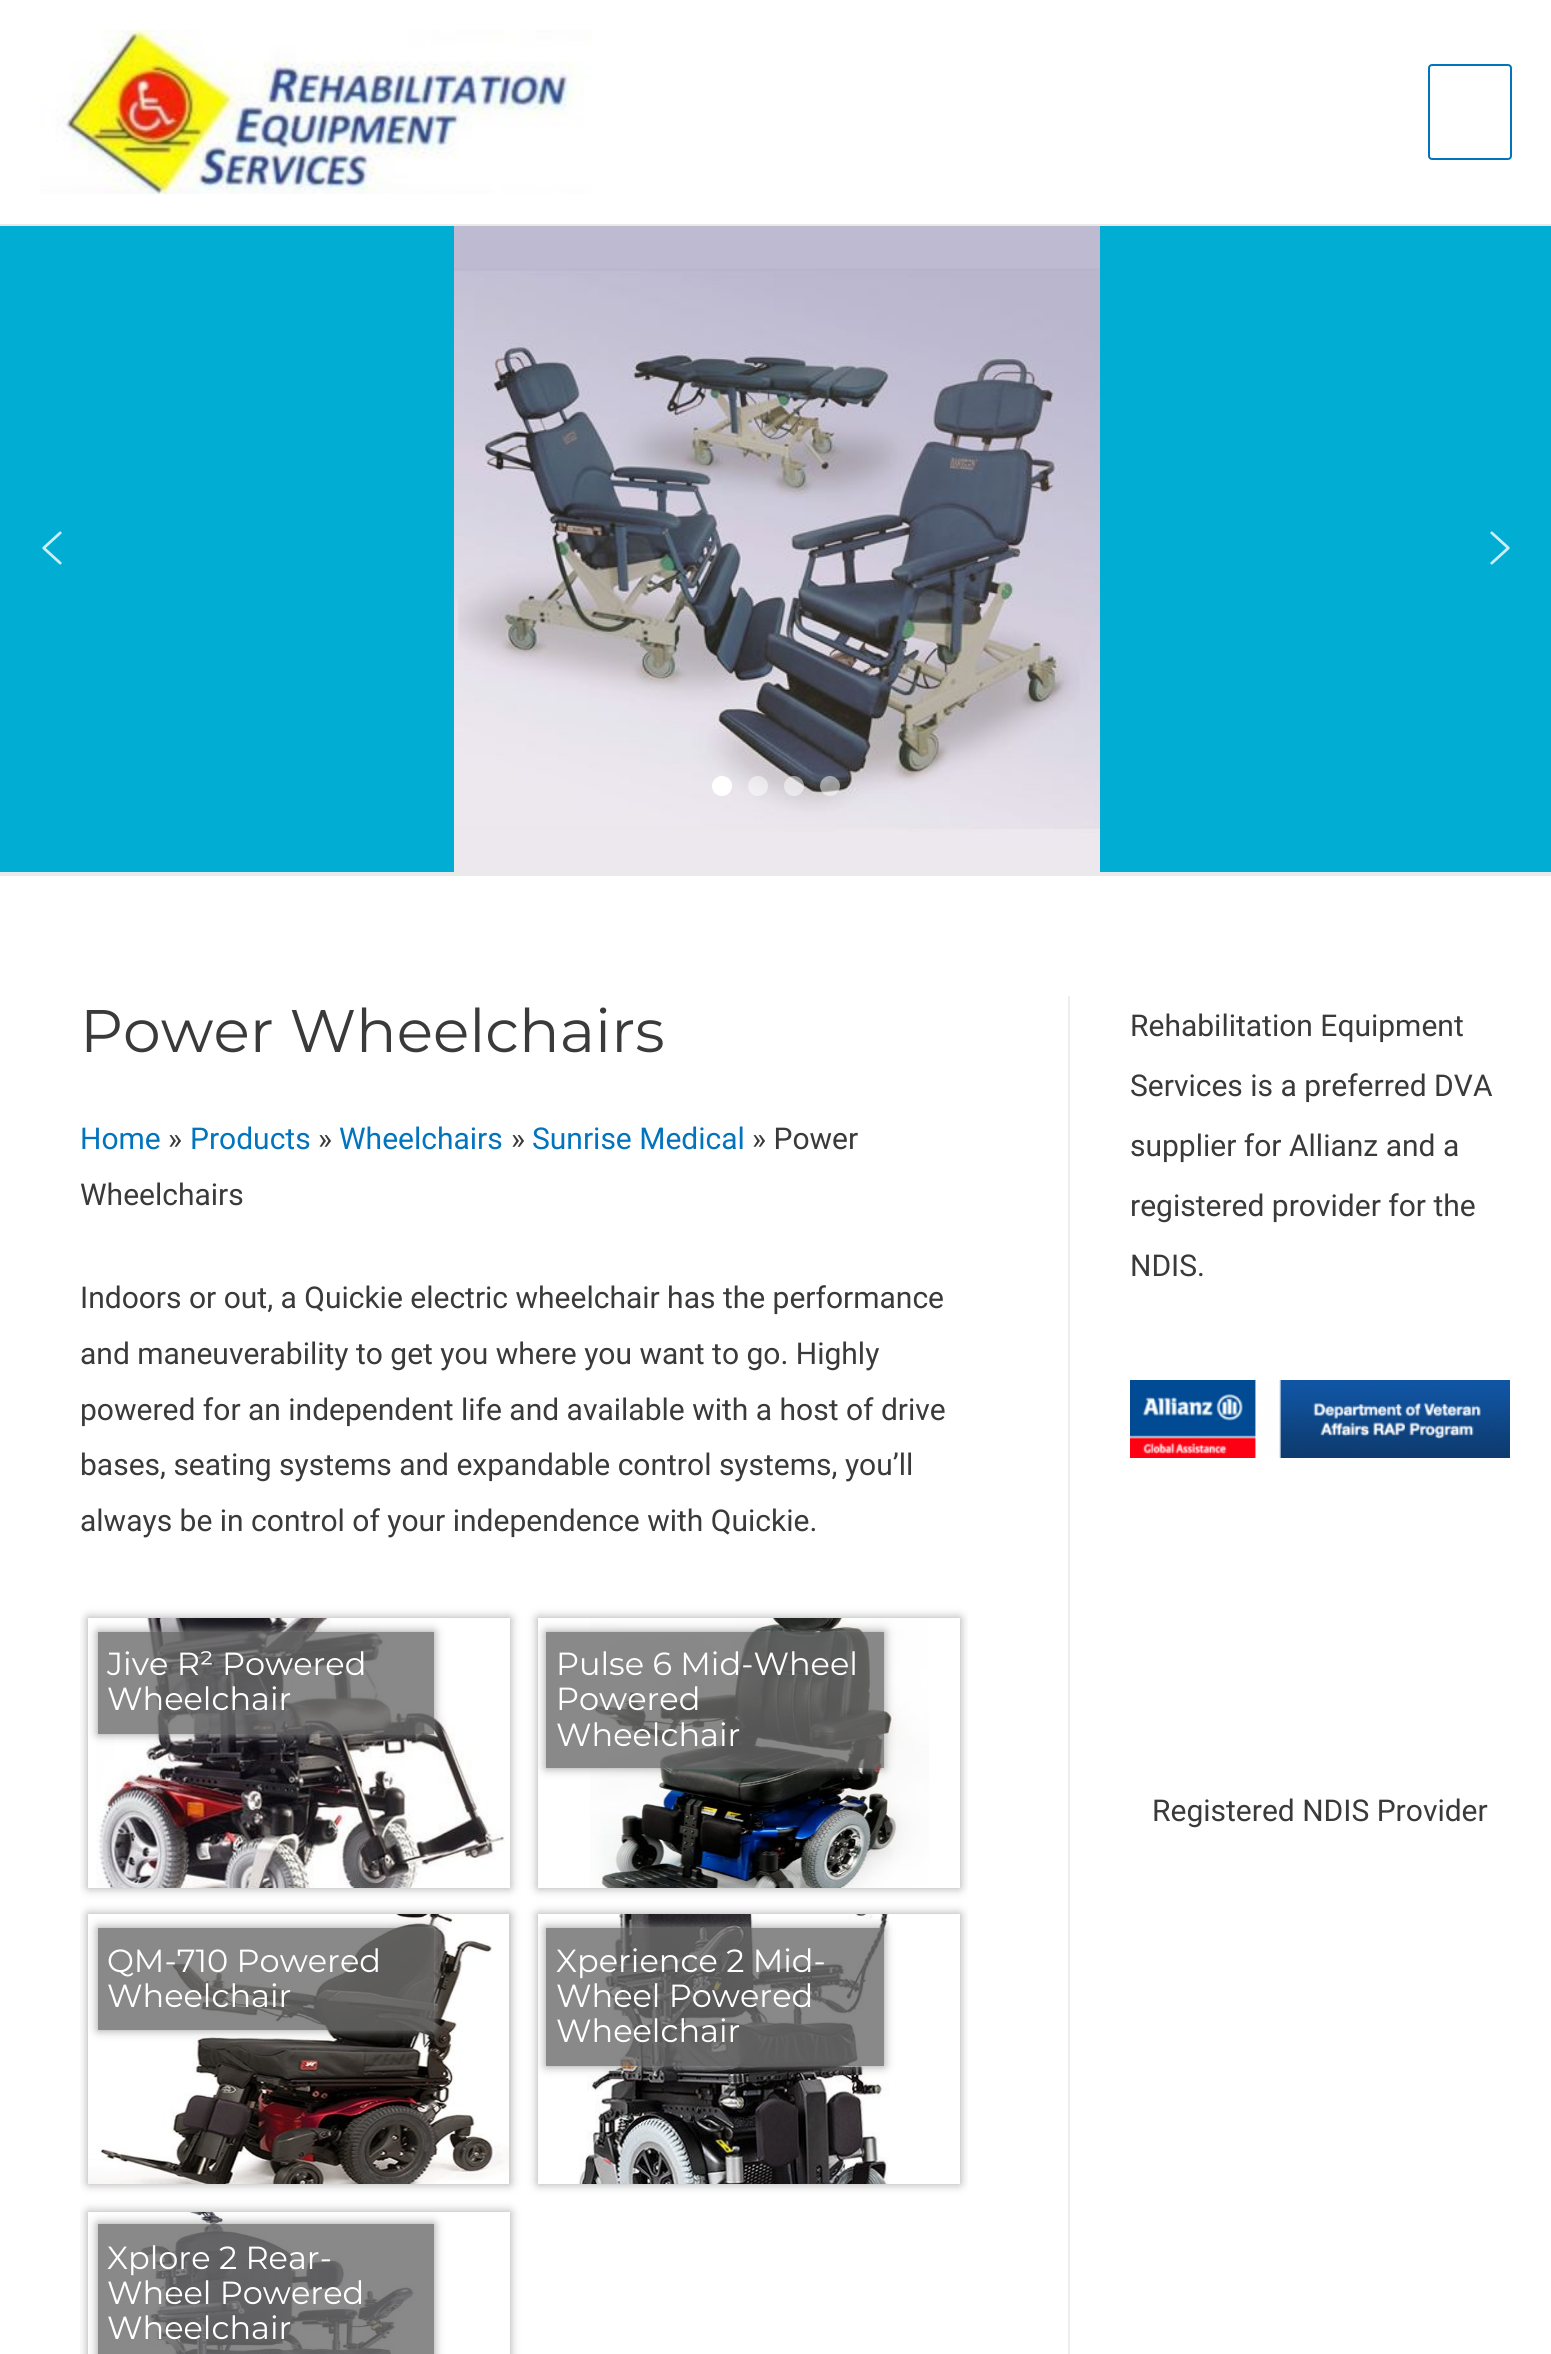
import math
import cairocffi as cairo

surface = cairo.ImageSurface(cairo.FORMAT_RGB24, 1551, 2354)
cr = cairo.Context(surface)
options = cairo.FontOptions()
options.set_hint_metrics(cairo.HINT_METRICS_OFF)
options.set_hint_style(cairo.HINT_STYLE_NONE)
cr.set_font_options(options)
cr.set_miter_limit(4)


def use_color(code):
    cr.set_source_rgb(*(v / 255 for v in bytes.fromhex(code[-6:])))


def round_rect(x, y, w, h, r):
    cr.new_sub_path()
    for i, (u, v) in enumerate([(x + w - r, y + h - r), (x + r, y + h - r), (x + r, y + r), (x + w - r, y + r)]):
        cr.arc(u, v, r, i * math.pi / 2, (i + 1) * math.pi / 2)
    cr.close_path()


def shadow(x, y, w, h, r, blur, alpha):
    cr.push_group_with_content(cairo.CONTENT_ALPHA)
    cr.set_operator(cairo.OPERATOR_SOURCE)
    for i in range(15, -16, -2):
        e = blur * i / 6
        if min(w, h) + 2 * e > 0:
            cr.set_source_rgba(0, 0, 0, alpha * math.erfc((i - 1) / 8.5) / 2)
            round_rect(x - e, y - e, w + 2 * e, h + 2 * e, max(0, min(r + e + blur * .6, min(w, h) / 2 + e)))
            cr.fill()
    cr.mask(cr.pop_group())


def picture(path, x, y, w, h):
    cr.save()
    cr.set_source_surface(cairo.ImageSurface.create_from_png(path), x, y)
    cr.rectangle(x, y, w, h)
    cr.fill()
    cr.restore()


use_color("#ffffff")
cr.paint()
use_color("#898989")
cr.rectangle(98, 2224, 336, 130)
cr.fill()
use_color("#eaeaea")
cr.rectangle(0, 872, 1551, 4)
cr.fill()
picture("img1.png", 40, 30, 552, 164)
round_rect(1429, 65, 82, 94, 3)
use_color("#0274be")
cr.stroke()
use_color("#eaeaea")
cr.rectangle(0, 224, 1551, 2)
cr.fill()
use_color("#01add3")
cr.rectangle(0, 226, 1551, 646)
cr.fill()
picture("img2.png", 454, 226, 646, 646)
picture("img3.png", 42, 531, 20, 34)
picture("img4.png", 1490, 531, 20, 34)
use_color("#ffffff")
cr.arc(722, 786, 10, 0, 2 * math.pi)
cr.fill()
cr.set_source_rgba(1, 1, 1, 0.5)
cr.arc(758, 786, 10, 0, 2 * math.pi)
cr.fill()
cr.arc(794, 786, 10, 0, 2 * math.pi)
cr.fill()
cr.arc(830, 786, 10, 0, 2 * math.pi)
cr.fill()
use_color("#eeeeee")
cr.rectangle(1068, 996, 2, 1358)
cr.fill()
cr.select_font_face("Montserrat Thin")
cr.set_font_size(60)
use_color("#3a3a3a")
cr.move_to(80, 1052)
cr.show_text("Power Wheelchairs")
cr.select_font_face("Roboto")
cr.set_font_size(30)
use_color("#0274be")
cr.move_to(80, 1149)
cr.show_text("Home")
use_color("#3a3a3a")
cr.move_to(168, 1149)
cr.show_text("»")
use_color("#0274be")
cr.move_to(190, 1149)
cr.show_text("Products")
use_color("#3a3a3a")
cr.move_to(318, 1149)
cr.show_text("»")
use_color("#0274be")
cr.move_to(339, 1149)
cr.show_text("Wheelchairs")
use_color("#3a3a3a")
cr.move_to(511, 1149)
cr.show_text("»")
use_color("#0274be")
cr.move_to(532, 1149)
cr.show_text("Sunrise Medical")
use_color("#3a3a3a")
cr.move_to(752, 1149)
cr.show_text("» Power")
cr.move_to(80, 1205)
cr.show_text("Wheelchairs")
cr.move_to(80, 1308)
cr.show_text("Indoors or out, a Quickie electric wheelchair has the performance")
cr.move_to(80, 1364)
cr.show_text("and maneuverability to get you where you want to go. Highly")
cr.move_to(80, 1420)
cr.show_text("powered for an independent life and available with a host of drive")
cr.move_to(80, 1475)
cr.show_text("bases, seating systems and expandable control systems, you’ll")
cr.move_to(80, 1531)
cr.show_text("always be in control of your independence with Quickie.")
cr.save()
cr.rectangle(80, 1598, 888, 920)
cr.clip()
cr.set_fill_rule(cairo.FILL_RULE_EVEN_ODD)
cr.new_path()
cr.move_to(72, 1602)
cr.line_to(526, 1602)
cr.line_to(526, 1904)
cr.line_to(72, 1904)
cr.close_path()
cr.move_to(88, 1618)
cr.line_to(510, 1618)
cr.line_to(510, 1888)
cr.line_to(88, 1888)
cr.close_path()
cr.clip()
use_color("#a7a6a6")
shadow(88, 1618, 422, 270, 0, 5, 1)
cr.restore()
picture("img5.png", 96, 1618, 409, 270)
cr.save()
cr.set_fill_rule(cairo.FILL_RULE_EVEN_ODD)
cr.new_path()
cr.move_to(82, 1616)
cr.line_to(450, 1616)
cr.line_to(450, 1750)
cr.line_to(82, 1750)
cr.close_path()
cr.move_to(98, 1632)
cr.line_to(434, 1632)
cr.line_to(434, 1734)
cr.line_to(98, 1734)
cr.close_path()
cr.clip()
use_color("#989898")
shadow(98, 1632, 336, 102, 0, 5, 1)
cr.restore()
cr.set_source_rgba(0.42, 0.42, 0.42, 0.8)
cr.rectangle(98, 1632, 336, 102)
cr.fill()
cr.select_font_face("Montserrat Thin")
cr.set_font_size(32)
use_color("#ffffff")
cr.move_to(107, 1675)
cr.show_text("Jive R² Powered")
cr.move_to(107, 1710)
cr.show_text("Wheelchair")
cr.save()
cr.rectangle(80, 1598, 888, 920)
cr.clip()
cr.set_fill_rule(cairo.FILL_RULE_EVEN_ODD)
cr.new_path()
cr.move_to(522, 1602)
cr.line_to(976, 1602)
cr.line_to(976, 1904)
cr.line_to(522, 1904)
cr.close_path()
cr.move_to(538, 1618)
cr.line_to(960, 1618)
cr.line_to(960, 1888)
cr.line_to(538, 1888)
cr.close_path()
cr.clip()
use_color("#a7a6a6")
shadow(538, 1618, 422, 270, 0, 5, 1)
cr.restore()
picture("img6.png", 590, 1618, 339, 270)
cr.save()
cr.rectangle(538, 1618, 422, 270)
cr.clip()
cr.set_fill_rule(cairo.FILL_RULE_EVEN_ODD)
cr.new_path()
cr.move_to(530, 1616)
cr.line_to(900, 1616)
cr.line_to(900, 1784)
cr.line_to(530, 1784)
cr.close_path()
cr.move_to(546, 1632)
cr.line_to(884, 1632)
cr.line_to(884, 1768)
cr.line_to(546, 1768)
cr.close_path()
cr.clip()
use_color("#989898")
shadow(546, 1632, 338, 136, 0, 5, 1)
cr.restore()
cr.set_source_rgba(0.42, 0.42, 0.42, 0.8)
cr.rectangle(546, 1632, 338, 136)
cr.fill()
use_color("#ffffff")
cr.move_to(556, 1675)
cr.show_text("Pulse 6 Mid-Wheel")
cr.move_to(556, 1710)
cr.show_text("Powered")
cr.move_to(556, 1746)
cr.show_text("Wheelchair")
cr.save()
cr.rectangle(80, 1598, 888, 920)
cr.clip()
use_color("#a7a6a6")
shadow(88, 1914, 422, 270, 0, 5, 1)
cr.restore()
picture("img7.png", 88, 1914, 421, 270)
cr.save()
cr.set_fill_rule(cairo.FILL_RULE_EVEN_ODD)
cr.new_path()
cr.move_to(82, 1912)
cr.line_to(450, 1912)
cr.line_to(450, 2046)
cr.line_to(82, 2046)
cr.close_path()
cr.move_to(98, 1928)
cr.line_to(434, 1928)
cr.line_to(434, 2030)
cr.line_to(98, 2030)
cr.close_path()
cr.clip()
use_color("#989898")
shadow(98, 1928, 336, 102, 0, 5, 1)
cr.restore()
cr.set_source_rgba(0.42, 0.42, 0.42, 0.8)
cr.rectangle(98, 1928, 336, 102)
cr.fill()
use_color("#ffffff")
cr.move_to(107, 1972)
cr.show_text("QM-710 Powered")
cr.move_to(107, 2007)
cr.show_text("Wheelchair")
cr.save()
cr.rectangle(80, 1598, 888, 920)
cr.clip()
cr.set_fill_rule(cairo.FILL_RULE_EVEN_ODD)
cr.new_path()
cr.move_to(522, 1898)
cr.line_to(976, 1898)
cr.line_to(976, 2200)
cr.line_to(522, 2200)
cr.close_path()
cr.move_to(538, 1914)
cr.line_to(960, 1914)
cr.line_to(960, 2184)
cr.line_to(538, 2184)
cr.close_path()
cr.clip()
use_color("#a7a6a6")
shadow(538, 1914, 422, 270, 0, 5, 1)
cr.restore()
picture("img8.png", 578, 1914, 311, 270)
cr.save()
cr.rectangle(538, 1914, 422, 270)
cr.clip()
cr.set_fill_rule(cairo.FILL_RULE_EVEN_ODD)
cr.new_path()
cr.move_to(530, 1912)
cr.line_to(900, 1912)
cr.line_to(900, 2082)
cr.line_to(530, 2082)
cr.close_path()
cr.move_to(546, 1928)
cr.line_to(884, 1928)
cr.line_to(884, 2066)
cr.line_to(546, 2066)
cr.close_path()
cr.clip()
use_color("#989898")
shadow(546, 1928, 338, 138, 0, 5, 1)
cr.restore()
cr.set_source_rgba(0.42, 0.42, 0.42, 0.8)
cr.rectangle(546, 1928, 338, 138)
cr.fill()
use_color("#ffffff")
cr.move_to(556, 1972)
cr.show_text("Xperience 2 Mid-")
cr.move_to(556, 2007)
cr.show_text("Wheel Powered")
cr.move_to(556, 2042)
cr.show_text("Wheelchair")
cr.save()
cr.rectangle(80, 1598, 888, 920)
cr.clip()
cr.set_fill_rule(cairo.FILL_RULE_EVEN_ODD)
cr.new_path()
cr.move_to(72, 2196)
cr.line_to(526, 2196)
cr.line_to(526, 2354)
cr.line_to(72, 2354)
cr.close_path()
cr.move_to(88, 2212)
cr.line_to(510, 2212)
cr.line_to(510, 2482)
cr.line_to(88, 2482)
cr.close_path()
cr.clip()
use_color("#a7a6a6")
shadow(88, 2212, 422, 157, 0, 5, 1)
cr.restore()
picture("img9.png", 140, 2212, 277, 142)
cr.save()
cr.set_fill_rule(cairo.FILL_RULE_EVEN_ODD)
cr.new_path()
cr.move_to(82, 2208)
cr.line_to(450, 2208)
cr.line_to(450, 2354)
cr.line_to(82, 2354)
cr.close_path()
cr.move_to(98, 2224)
cr.line_to(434, 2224)
cr.line_to(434, 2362)
cr.line_to(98, 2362)
cr.close_path()
cr.clip()
use_color("#989898")
shadow(98, 2224, 336, 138, 0, 5, 1)
cr.restore()
cr.move_to(107, 2269)
cr.show_text("Xplore 2 Rear-")
cr.move_to(107, 2304)
cr.show_text("Wheel Powered")
cr.move_to(107, 2339)
cr.show_text("Wheelchair")
cr.select_font_face("Roboto")
cr.set_font_size(30)
use_color("#3a3a3a")
cr.move_to(1130, 1036)
cr.show_text("Rehabilitation Equipment")
cr.move_to(1130, 1096)
cr.show_text("Services is a preferred DVA")
cr.move_to(1130, 1156)
cr.show_text("supplier for Allianz and a")
cr.move_to(1130, 1216)
cr.show_text("registered provider for the")
cr.move_to(1130, 1276)
cr.show_text("NDIS.")
picture("img10.png", 1130, 1380, 380, 78)
cr.move_to(1152, 1821)
cr.show_text("Registered NDIS Provider")
surface.write_to_png("result.png")
